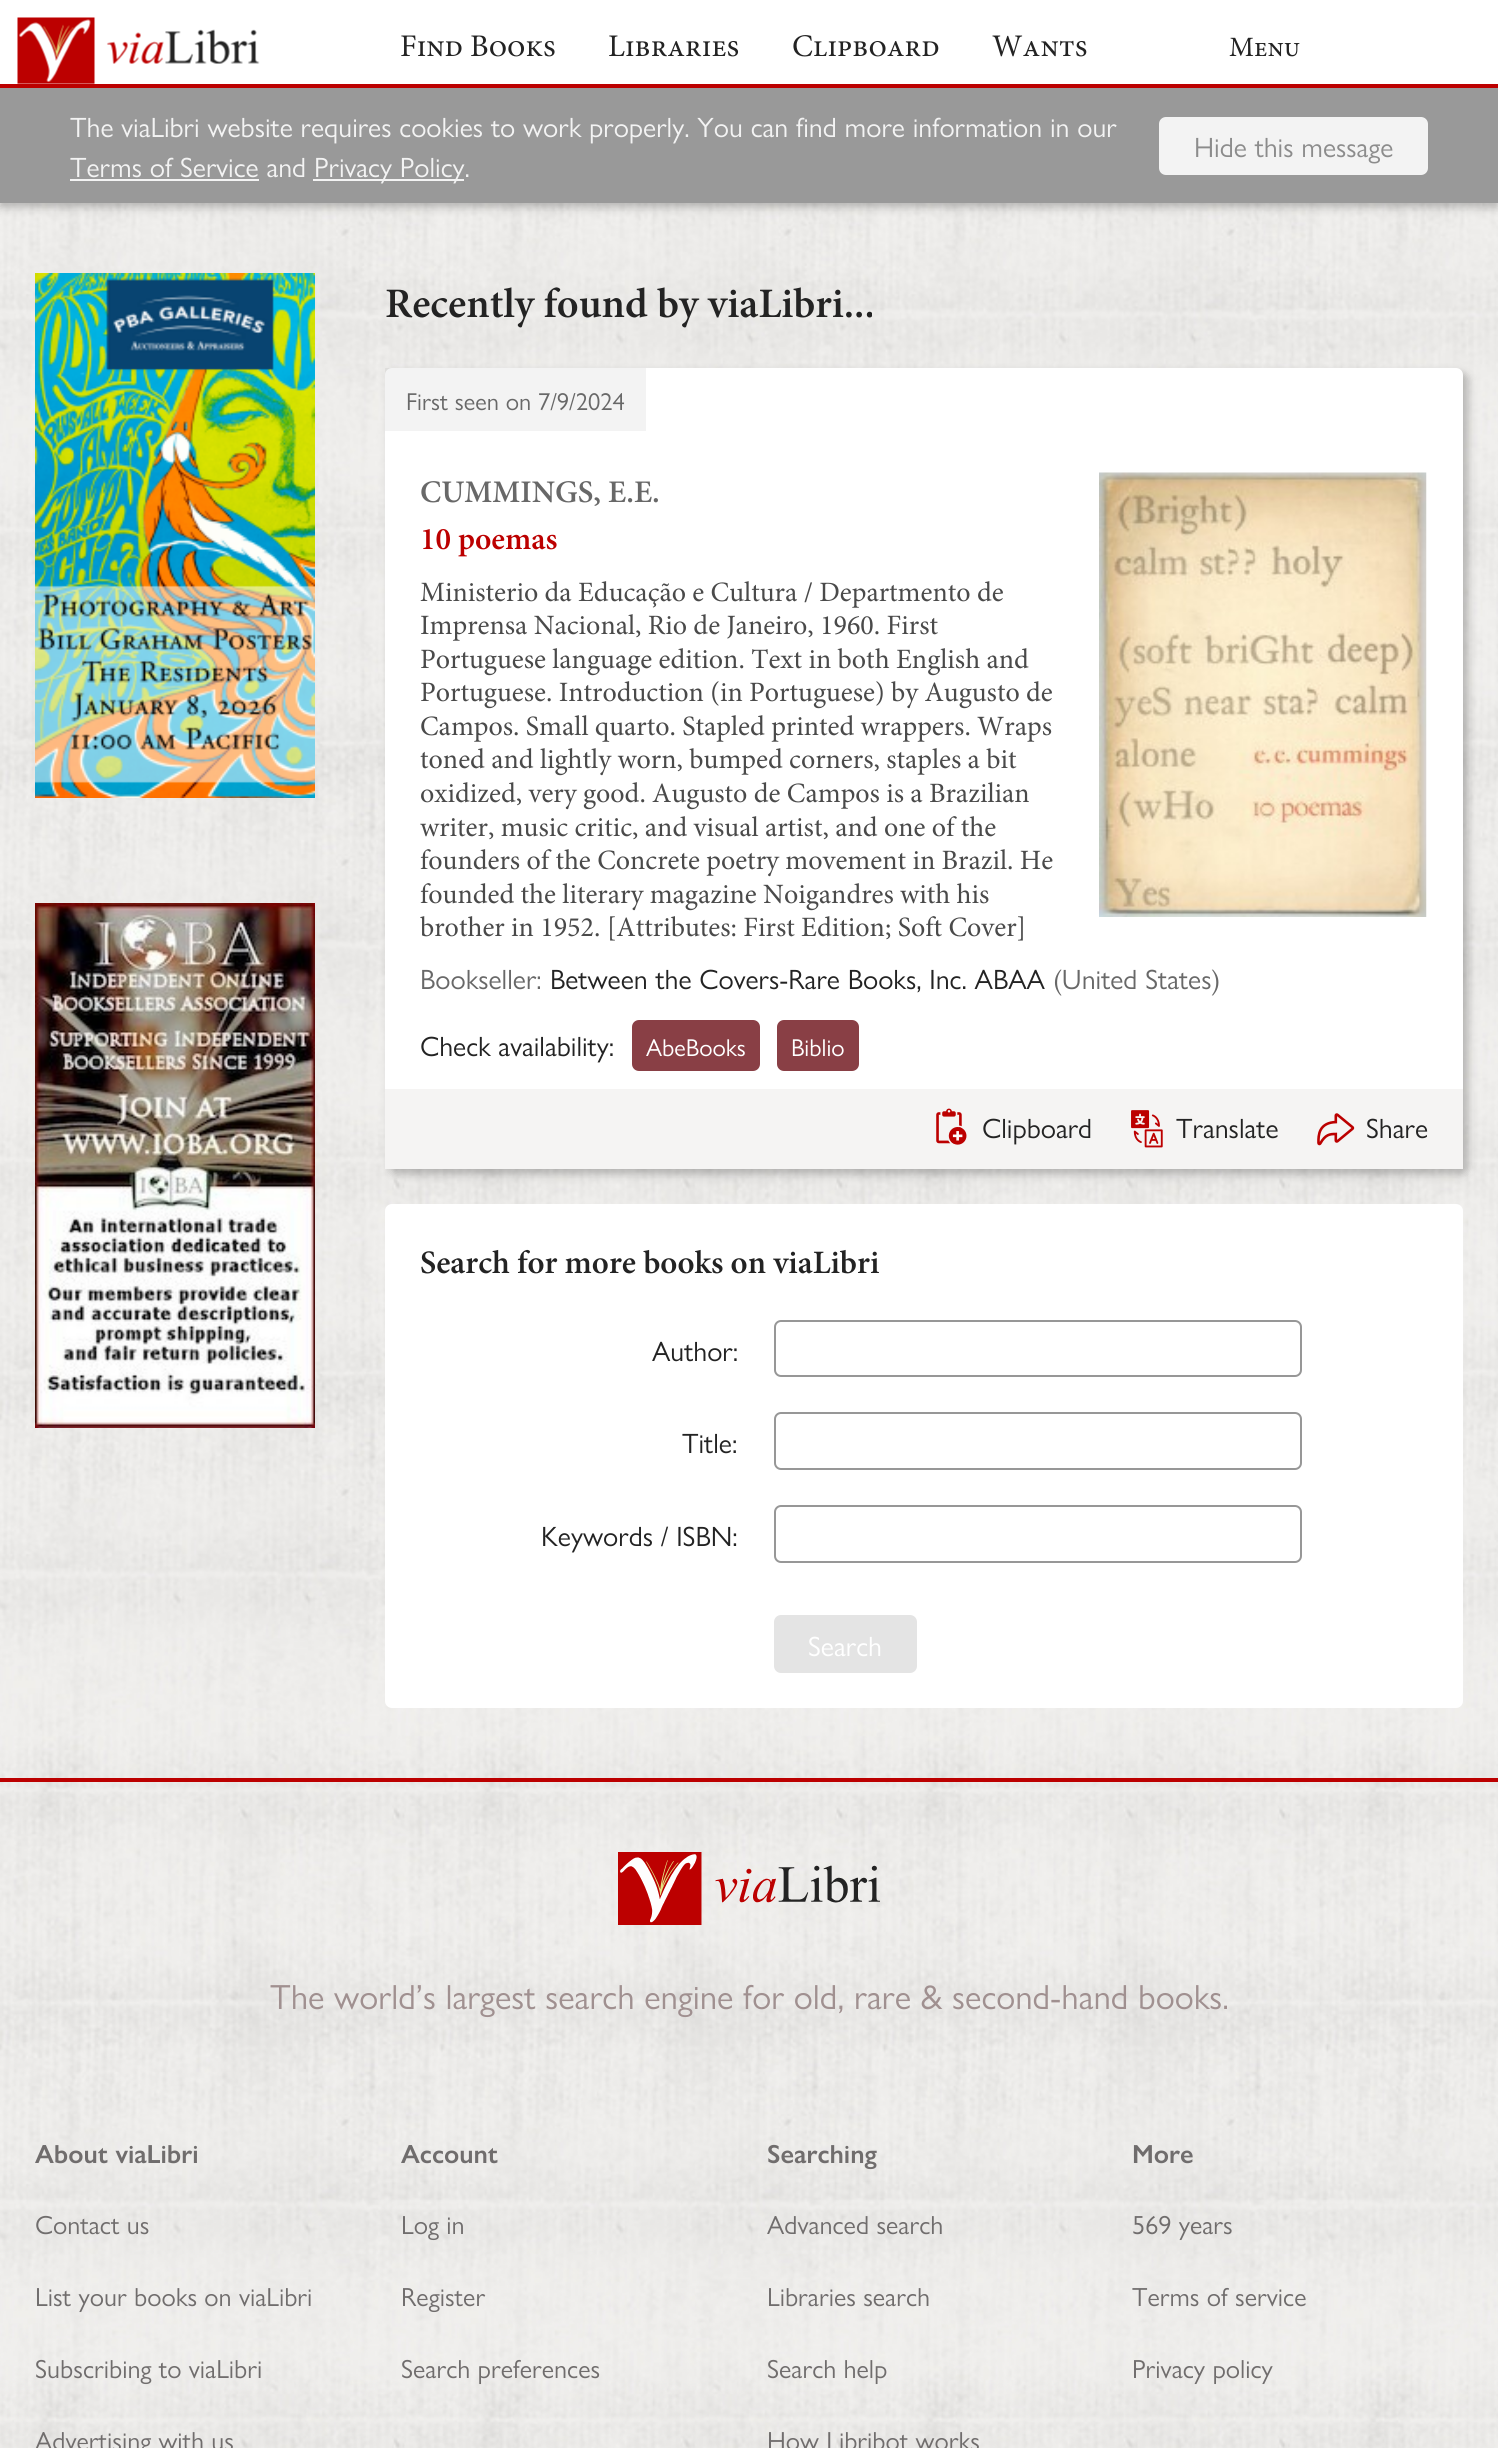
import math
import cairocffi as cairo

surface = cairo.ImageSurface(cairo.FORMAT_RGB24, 1498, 2448)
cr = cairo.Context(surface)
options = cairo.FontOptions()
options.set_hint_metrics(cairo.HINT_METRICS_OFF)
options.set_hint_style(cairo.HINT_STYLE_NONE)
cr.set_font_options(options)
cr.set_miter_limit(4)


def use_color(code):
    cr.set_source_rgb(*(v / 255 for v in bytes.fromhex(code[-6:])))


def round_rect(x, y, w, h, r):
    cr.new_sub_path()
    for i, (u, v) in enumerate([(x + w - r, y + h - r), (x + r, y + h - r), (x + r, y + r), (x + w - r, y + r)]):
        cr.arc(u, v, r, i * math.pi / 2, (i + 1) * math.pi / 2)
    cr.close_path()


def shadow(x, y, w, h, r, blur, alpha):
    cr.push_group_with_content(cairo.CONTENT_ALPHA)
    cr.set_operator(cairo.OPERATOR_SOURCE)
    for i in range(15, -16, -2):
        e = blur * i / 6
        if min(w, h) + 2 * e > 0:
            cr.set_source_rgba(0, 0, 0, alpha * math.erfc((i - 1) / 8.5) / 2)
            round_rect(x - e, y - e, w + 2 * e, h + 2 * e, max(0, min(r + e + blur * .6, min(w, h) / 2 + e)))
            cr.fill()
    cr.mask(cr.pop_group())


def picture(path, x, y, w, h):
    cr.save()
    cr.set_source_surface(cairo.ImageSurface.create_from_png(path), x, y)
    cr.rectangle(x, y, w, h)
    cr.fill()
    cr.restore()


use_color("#ffffff")
cr.paint()
picture("img1.png", 0, 203, 1498, 2245)
use_color("#000000")
shadow(0, 4, 1498, 203, 0, 4.5, 0.25)
use_color("#ffffff")
cr.rectangle(0, 0, 1498, 84)
cr.fill()
use_color("#bc0000")
cr.rectangle(0, 84, 1498, 4)
cr.fill()
picture("img2.png", 17, 17, 243, 67)
cr.select_font_face("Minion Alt")
cr.set_font_size(31.5)
use_color("#232323")
cr.move_to(400, 56)
cr.show_text("Find Books")
cr.move_to(608, 56)
cr.show_text("Libraries")
cr.move_to(792, 56)
cr.show_text("Clipboard")
cr.move_to(992, 56)
cr.show_text("Wants")
cr.set_font_size(28)
cr.move_to(1229, 56)
cr.show_text("Menu")
use_color("#999999")
cr.rectangle(0, 88, 1498, 115)
cr.fill()
cr.select_font_face("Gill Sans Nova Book")
use_color("#f3f3f3")
cr.move_to(70, 137)
cr.show_text("The viaLibri website requires cookies to work properly. You can find more information in our")
cr.move_to(70, 177)
cr.show_text("Terms of Service and")
cr.rectangle(70, 179, 189, 2)
cr.fill()
cr.rectangle(313, 179, 151, 2)
cr.fill()
cr.move_to(314, 177)
cr.show_text("Privacy Policy.")
round_rect(1159, 117, 269, 58, 7)
cr.fill()
use_color("#8c8c8c")
cr.move_to(1194, 157)
cr.show_text("Hide this message")
picture("img3.png", 35, 273, 280, 525)
cr.select_font_face("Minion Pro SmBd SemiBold")
cr.set_font_size(42)
use_color("#232323")
cr.move_to(385, 317)
cr.show_text("Recently found by viaLibri...")
use_color("#000000")
shadow(390, 373, 1078, 801, 7, 4.5, 0.25)
use_color("#ffffff")
round_rect(385, 368, 1078, 801, 7)
cr.fill()
cr.set_source_rgba(0, 0, 0, 0.05)
cr.rectangle(385, 368, 261, 63)
cr.fill()
cr.select_font_face("Gill Sans Nova Book")
cr.set_font_size(24.5)
use_color("#686868")
cr.move_to(406, 410)
cr.show_text("First seen on 7/9/2024")
cr.select_font_face("Minion Pro SmBd SemiBold")
cr.set_font_size(31.5)
cr.move_to(420, 502)
cr.show_text("CUMMINGS, E.E.")
use_color("#bc0000")
cr.move_to(420, 549)
cr.show_text("10 poemas")
picture("img4.png", 1099, 472, 328, 445)
cr.select_font_face("Minion")
cr.set_font_size(28)
use_color("#4a4a4a")
cr.move_to(420, 601)
cr.show_text("Ministerio da Educação e Cultura / Departmento de")
cr.move_to(420, 634)
cr.show_text("Imprensa Nacional, Rio de Janeiro, 1960. First")
cr.move_to(420, 668)
cr.show_text("Portuguese language edition. Text in both English and")
cr.move_to(420, 701)
cr.show_text("Portuguese. Introduction (in Portuguese) by Augusto de")
cr.move_to(420, 735)
cr.show_text("Campos. Small quarto. Stapled printed wrappers. Wraps")
cr.move_to(420, 768)
cr.show_text("toned and lightly worn, bumped corners, staples a bit")
cr.move_to(420, 802)
cr.show_text("oxidized, very good. Augusto de Campos is a Brazilian")
cr.move_to(420, 836)
cr.show_text("writer, music critic, and visual artist, and one of the")
cr.move_to(420, 869)
cr.show_text("founders of the Concrete poetry movement in Brazil. He")
cr.move_to(420, 903)
cr.show_text("founded the literary magazine Noigandres with his")
cr.move_to(420, 936)
cr.show_text("brother in 1952. [Attributes: First Edition; Soft Cover]")
cr.select_font_face("Gill Sans Nova Book")
use_color("#686868")
cr.move_to(420, 989)
cr.show_text("Bookseller:")
use_color("#232323")
cr.move_to(550, 989)
cr.show_text("Between the Covers-Rare Books, Inc. ABAA")
use_color("#686868")
cr.move_to(1053, 989)
cr.show_text("(United States)")
use_color("#232323")
cr.move_to(420, 1056)
cr.show_text("Check availability:")
use_color("#893f45")
round_rect(632, 1020, 128, 51, 7)
cr.fill()
cr.set_font_size(24.5)
use_color("#ffffff")
cr.move_to(646, 1056)
cr.show_text("AbeBooks")
use_color("#893f45")
round_rect(777, 1020, 82, 51, 7)
cr.fill()
use_color("#ffffff")
cr.move_to(791, 1056)
cr.show_text("Biblio")
use_color("#f5f4f3")
cr.rectangle(385, 1089, 1078, 80)
cr.fill()
picture("img5.png", 936, 1108, 31, 37)
cr.set_font_size(28)
use_color("#232323")
cr.move_to(982, 1138)
cr.show_text("Clipboard")
picture("img6.png", 1131, 1110, 32, 38)
cr.move_to(1176, 1138)
cr.show_text("Translate")
picture("img7.png", 1317, 1113, 38, 33)
cr.move_to(1366, 1138)
cr.show_text("Share")
use_color("#ffffff")
round_rect(385, 1204, 1078, 504, 7)
cr.fill()
cr.select_font_face("Minion Pro SmBd SemiBold")
cr.set_font_size(32.75)
use_color("#232323")
cr.move_to(420, 1273)
cr.show_text("Search for more books on viaLibri")
cr.select_font_face("Gill Sans Nova Book")
cr.set_font_size(28)
cr.move_to(652, 1361)
cr.show_text("Author:")
round_rect(775, 1321, 526, 55, 6)
use_color("#979797")
cr.stroke()
use_color("#232323")
cr.move_to(682, 1453)
cr.show_text("Title:")
round_rect(775, 1413, 526, 56, 6)
use_color("#979797")
cr.stroke()
use_color("#232323")
cr.move_to(541, 1546)
cr.show_text("Keywords / ISBN:")
round_rect(775, 1506, 526, 56, 6)
use_color("#979797")
cr.stroke()
use_color("#e4e4e4")
round_rect(774, 1615, 143, 58, 7)
cr.fill()
use_color("#ffffff")
cr.move_to(808, 1656)
cr.show_text("Search")
picture("img8.png", 35, 903, 280, 525)
use_color("#bc0000")
cr.rectangle(0, 1778, 1498, 4)
cr.fill()
picture("img9.png", 618, 1852, 262, 73)
cr.set_font_size(35)
use_color("#a09090")
cr.move_to(270, 2009)
cr.show_text("The world’s largest search engine for old, rare & second-hand books.")
cr.select_font_face("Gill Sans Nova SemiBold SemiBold")
cr.set_font_size(26.25)
use_color("#706d6d")
cr.move_to(35, 2163)
cr.show_text("About viaLibri")
cr.select_font_face("Gill Sans Nova Book")
cr.move_to(35, 2234)
cr.show_text("Contact us")
cr.move_to(35, 2306)
cr.show_text("List your books on viaLibri")
cr.move_to(35, 2378)
cr.show_text("Subscribing to viaLibri")
cr.move_to(35, 2450)
cr.show_text("Advertising with us")
cr.select_font_face("Gill Sans Nova SemiBold SemiBold")
cr.move_to(401, 2163)
cr.show_text("Account")
cr.select_font_face("Gill Sans Nova Book")
cr.move_to(401, 2234)
cr.show_text("Log in")
cr.move_to(401, 2306)
cr.show_text("Register")
cr.move_to(401, 2378)
cr.show_text("Search preferences")
cr.select_font_face("Gill Sans Nova SemiBold SemiBold")
cr.move_to(767, 2163)
cr.show_text("Searching")
cr.select_font_face("Gill Sans Nova Book")
cr.move_to(767, 2234)
cr.show_text("Advanced search")
cr.move_to(767, 2306)
cr.show_text("Libraries search")
cr.move_to(767, 2378)
cr.show_text("Search help")
cr.move_to(767, 2450)
cr.show_text("How Libribot works")
cr.select_font_face("Gill Sans Nova SemiBold SemiBold")
cr.move_to(1132, 2163)
cr.show_text("More")
cr.select_font_face("Gill Sans Nova Book")
cr.move_to(1132, 2234)
cr.show_text("569 years")
cr.move_to(1132, 2306)
cr.show_text("Terms of service")
cr.move_to(1132, 2378)
cr.show_text("Privacy policy")
surface.write_to_png("result.png")
